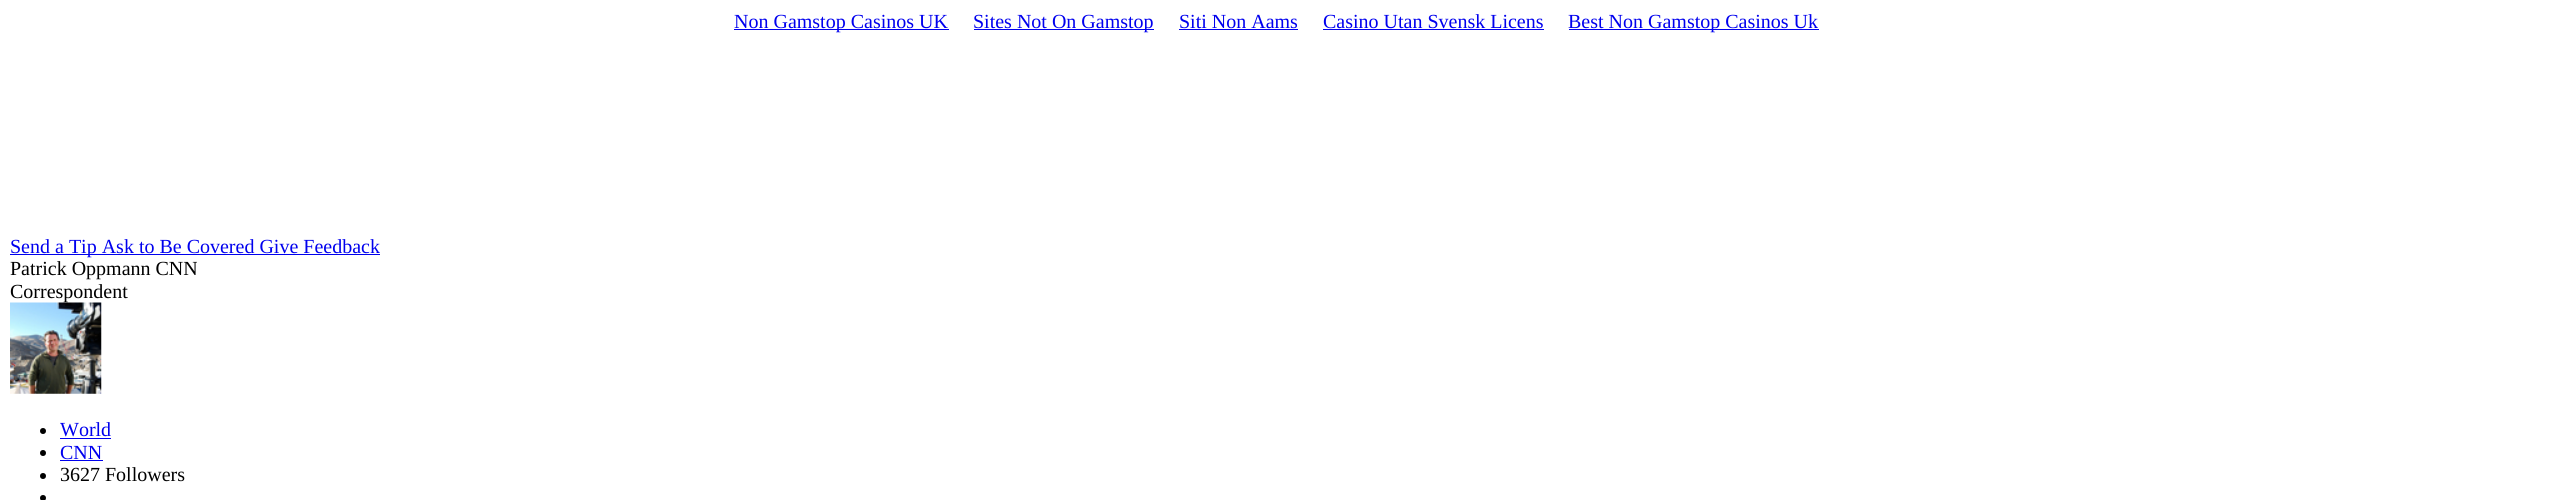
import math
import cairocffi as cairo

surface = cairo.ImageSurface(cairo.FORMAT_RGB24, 2552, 500)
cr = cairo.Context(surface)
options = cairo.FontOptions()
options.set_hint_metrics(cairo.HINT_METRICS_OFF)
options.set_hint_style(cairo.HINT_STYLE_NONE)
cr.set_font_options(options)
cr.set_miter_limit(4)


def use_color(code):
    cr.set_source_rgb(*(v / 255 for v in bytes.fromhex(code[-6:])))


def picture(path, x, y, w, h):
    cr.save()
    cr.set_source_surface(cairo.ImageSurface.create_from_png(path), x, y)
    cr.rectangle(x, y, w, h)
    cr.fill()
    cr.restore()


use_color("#ffffff")
cr.paint()
use_color("#0000ee")
cr.rectangle(734, 29, 215, 1)
cr.fill()
cr.select_font_face("Liberation Serif")
cr.set_font_size(20)
cr.move_to(734, 28)
cr.show_text("Non Gamstop Casinos UK")
cr.rectangle(974, 29, 180, 1)
cr.fill()
cr.move_to(973, 28)
cr.show_text("Sites Not On Gamstop")
cr.move_to(1179, 28)
cr.show_text("Siti Non Aams")
cr.rectangle(1179, 29, 119, 1)
cr.fill()
cr.move_to(1323, 28)
cr.show_text("Casino Utan Svensk Licens")
cr.rectangle(1323, 29, 221, 1)
cr.fill()
cr.rectangle(1569, 29, 250, 1)
cr.fill()
cr.move_to(1568, 28)
cr.show_text("Best Non Gamstop Casinos Uk")
cr.rectangle(10, 254, 370, 1)
cr.fill()
cr.move_to(10, 253)
cr.show_text("Send a Tip Ask to Be Covered Give Feedback")
use_color("#000000")
cr.move_to(10, 275)
cr.show_text("Patrick Oppmann CNN")
cr.move_to(10, 298)
cr.show_text("Correspondent")
picture("img1.png", 10, 302, 92, 92)
cr.arc(43, 431, 3, 0, 2 * math.pi)
cr.fill()
use_color("#0000ee")
cr.move_to(60, 436)
cr.show_text("World")
cr.rectangle(60, 438, 51, 1)
cr.fill()
use_color("#000000")
cr.arc(43, 453, 3, 0, 2 * math.pi)
cr.fill()
use_color("#0000ee")
cr.move_to(60, 459)
cr.show_text("CNN")
cr.rectangle(60, 460, 43, 1)
cr.fill()
use_color("#000000")
cr.arc(43, 476, 3, 0, 2 * math.pi)
cr.fill()
cr.move_to(60, 481)
cr.show_text("3627 Followers")
cr.new_path()
cr.arc(43, 498, 3, 0, 2 * math.pi)
cr.fill()
surface.write_to_png("result.png")
